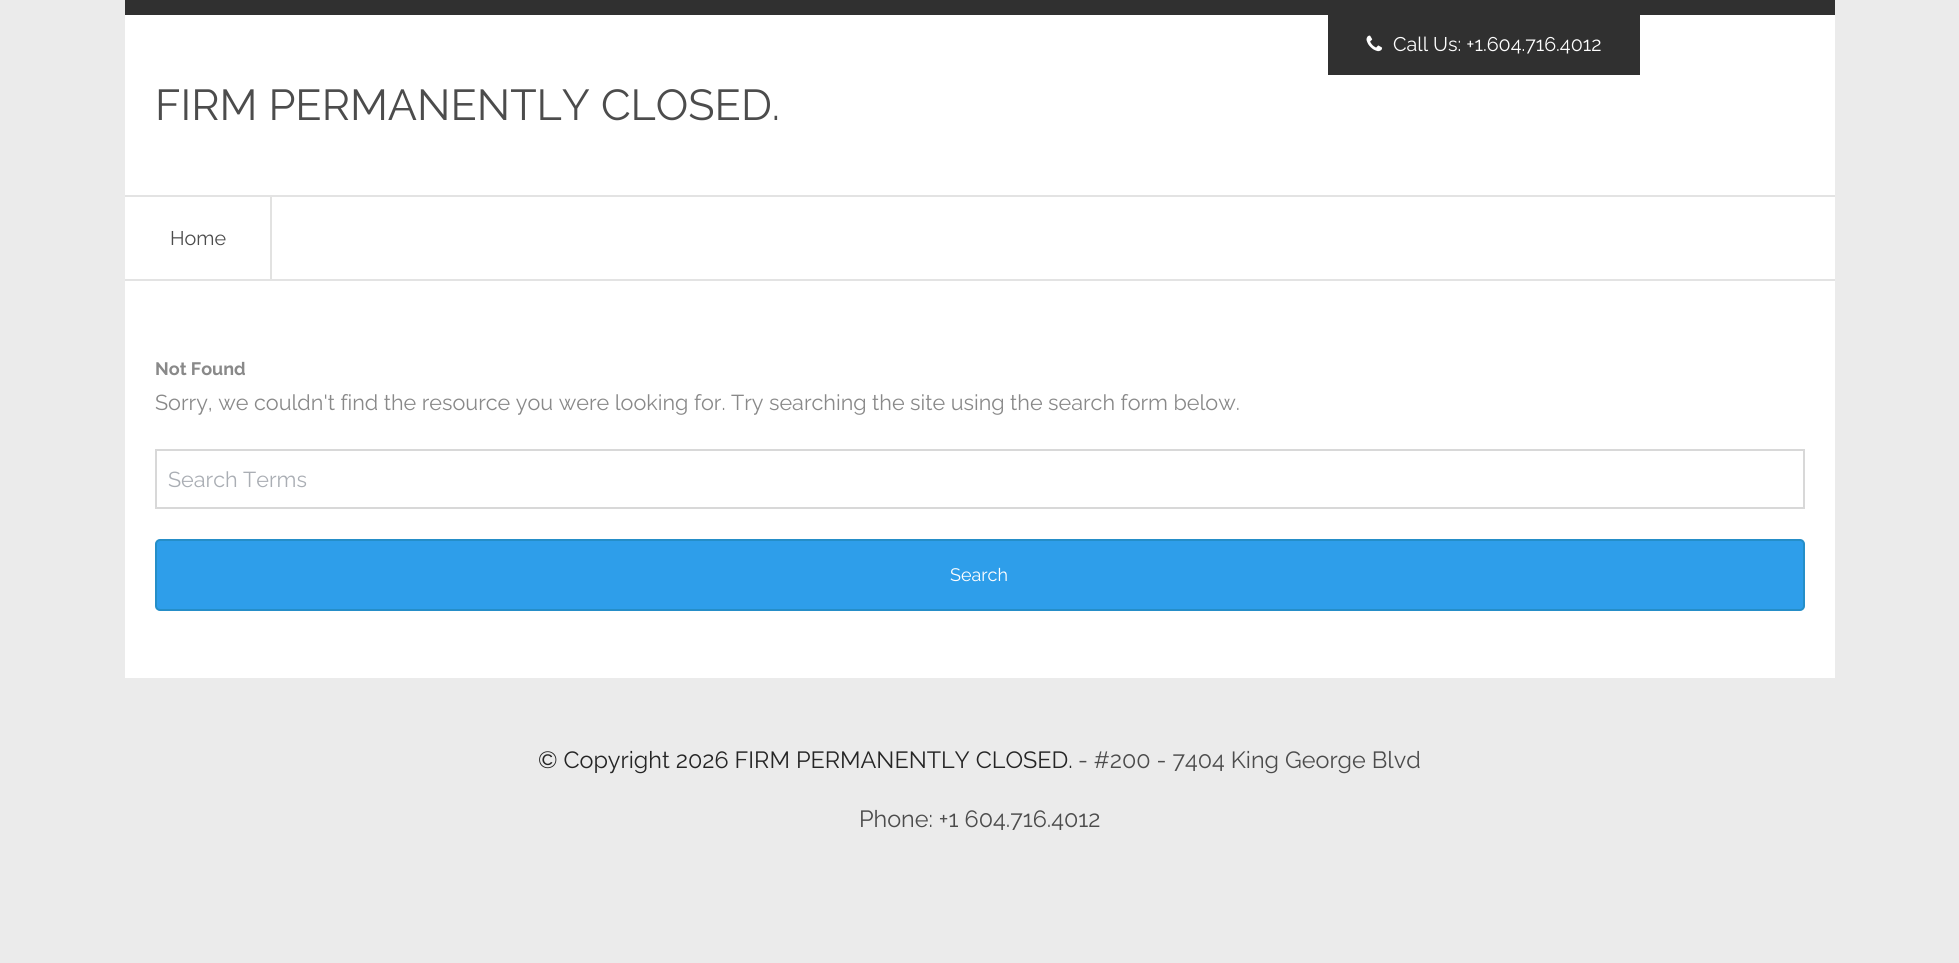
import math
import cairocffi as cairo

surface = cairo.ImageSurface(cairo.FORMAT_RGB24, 1959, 963)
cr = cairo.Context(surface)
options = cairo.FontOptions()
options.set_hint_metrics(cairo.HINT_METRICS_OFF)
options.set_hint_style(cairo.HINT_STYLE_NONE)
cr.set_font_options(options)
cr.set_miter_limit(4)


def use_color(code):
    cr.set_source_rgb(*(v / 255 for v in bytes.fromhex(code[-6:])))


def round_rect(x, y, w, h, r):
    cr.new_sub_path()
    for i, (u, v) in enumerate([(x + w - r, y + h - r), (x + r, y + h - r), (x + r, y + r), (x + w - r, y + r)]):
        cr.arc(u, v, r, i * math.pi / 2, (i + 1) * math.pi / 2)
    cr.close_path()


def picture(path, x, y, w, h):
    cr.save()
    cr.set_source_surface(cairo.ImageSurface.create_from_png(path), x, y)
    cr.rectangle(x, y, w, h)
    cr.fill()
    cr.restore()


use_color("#ebebeb")
cr.paint()
use_color("#ffffff")
cr.rectangle(125, 15, 1710, 180)
cr.fill()
use_color("#303030")
cr.rectangle(125, 0, 1710, 15)
cr.fill()
use_color("#e3e3e3")
cr.rectangle(125, 195, 1710, 2)
cr.fill()
use_color("#303030")
cr.rectangle(1328, 15, 312, 60)
cr.fill()
picture("img1.png", 1366, 35, 17, 17)
cr.select_font_face("Raleway")
cr.set_font_size(19.75)
use_color("#fefefe")
cr.move_to(1393, 51)
cr.show_text("Call Us: +1.604.716.4012")
cr.set_font_size(43.25)
use_color("#4c4c4c")
cr.move_to(155, 120)
cr.show_text("FIRM PERMANENTLY CLOSED.")
use_color("#ffffff")
cr.rectangle(125, 197, 1710, 82)
cr.fill()
use_color("#e3e3e3")
cr.rectangle(125, 279, 1710, 2)
cr.fill()
use_color("#e2e2e1")
cr.rectangle(270, 197, 2, 82)
cr.fill()
cr.set_font_size(19.75)
use_color("#4c4c4c")
cr.move_to(170, 245)
cr.show_text("Home")
use_color("#ffffff")
cr.rectangle(125, 281, 1710, 397)
cr.fill()
cr.select_font_face("Raleway", cairo.FONT_SLANT_NORMAL, cairo.FONT_WEIGHT_BOLD)
cr.set_font_size(18)
use_color("#898989")
cr.move_to(155, 375)
cr.show_text("Not Found")
cr.select_font_face("Raleway")
cr.set_font_size(21.6)
cr.move_to(155, 410)
cr.show_text("Sorry, we couldn't find the resource you were looking for. Try searching the site using the search form below.")
cr.rectangle(156, 450, 1648, 58)
use_color("#d8d8d8")
cr.stroke()
use_color("#aaaeb4")
cr.move_to(168, 487)
cr.show_text("Search Terms")
use_color("#2e9eea")
round_rect(156, 540, 1648, 70, 4)
cr.fill_preserve()
use_color("#258ec8")
cr.stroke()
cr.set_font_size(18)
use_color("#fefefe")
cr.move_to(950, 581)
cr.show_text("Search")
cr.set_font_size(23.4)
use_color("#252525")
cr.move_to(538, 768)
cr.show_text("© Copyright 2026 FIRM PERMANENTLY CLOSED.")
use_color("#4c4c4c")
cr.move_to(1078, 768)
cr.show_text("- #200 - 7404 King George Blvd")
cr.move_to(859, 827)
cr.show_text("Phone: +1 604.716.4012")
surface.write_to_png("result.png")
